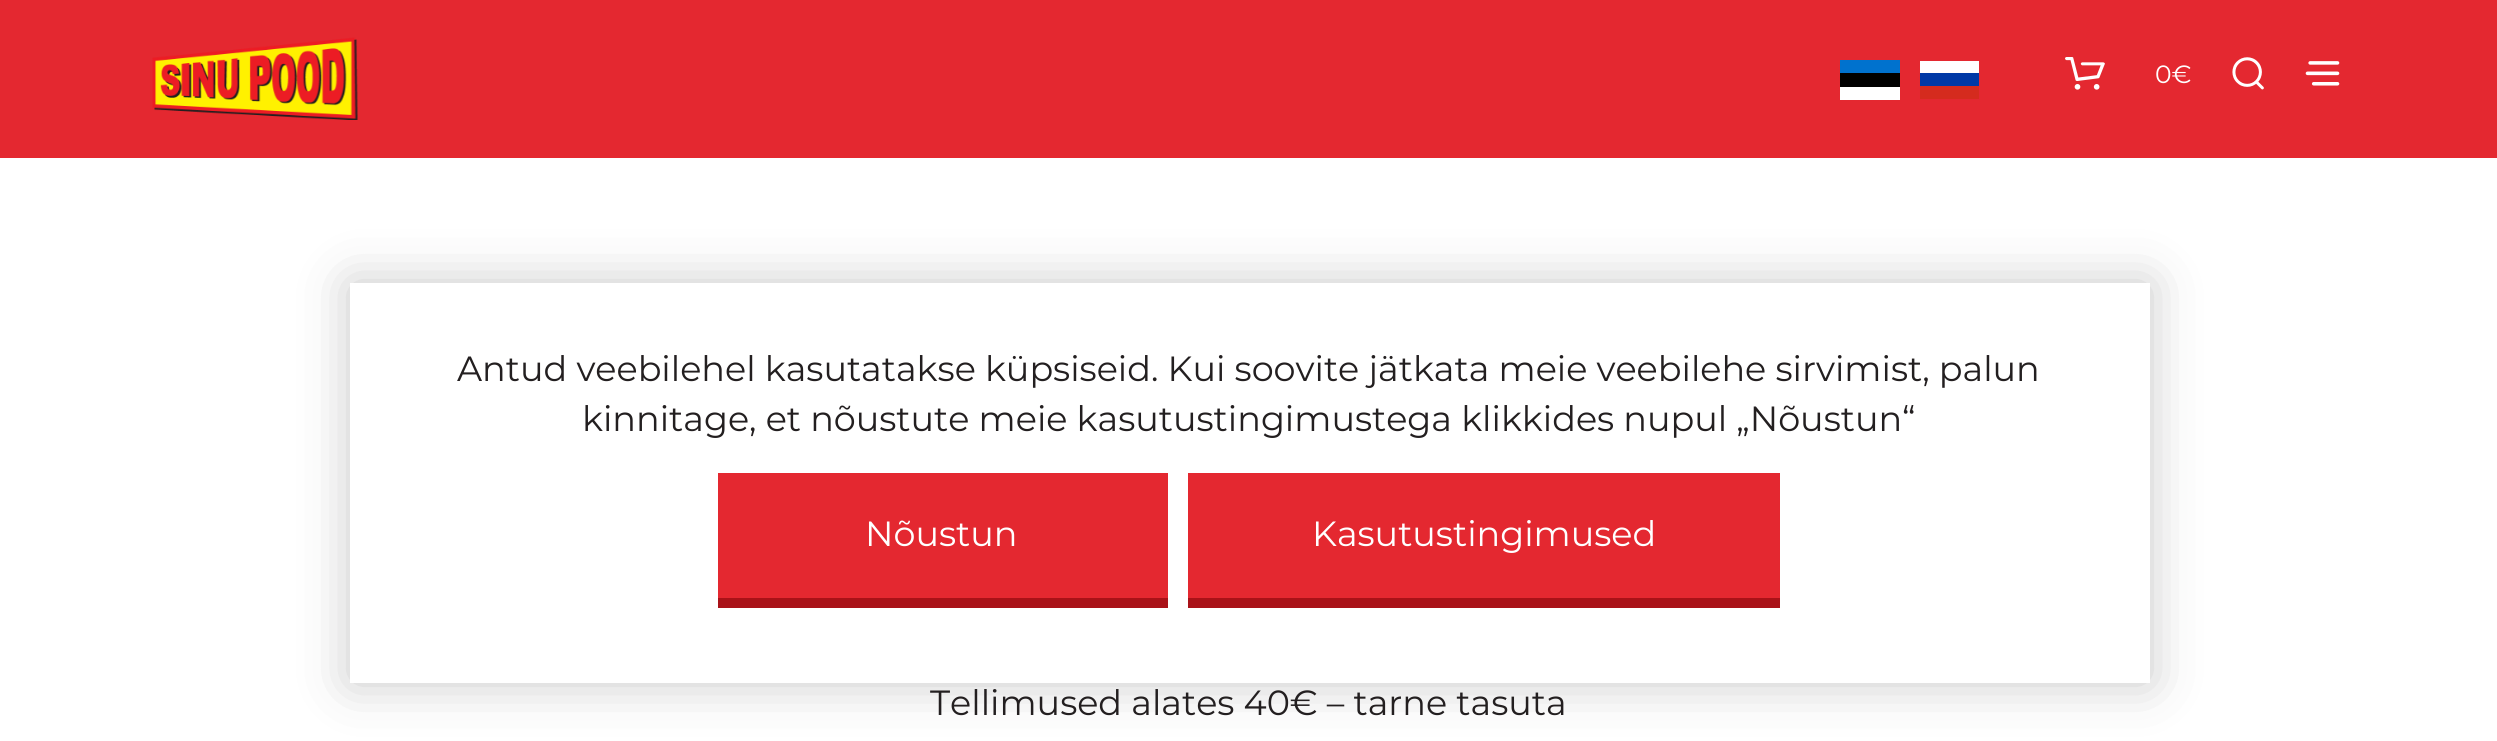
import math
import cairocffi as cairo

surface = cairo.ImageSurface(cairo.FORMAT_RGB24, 2497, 741)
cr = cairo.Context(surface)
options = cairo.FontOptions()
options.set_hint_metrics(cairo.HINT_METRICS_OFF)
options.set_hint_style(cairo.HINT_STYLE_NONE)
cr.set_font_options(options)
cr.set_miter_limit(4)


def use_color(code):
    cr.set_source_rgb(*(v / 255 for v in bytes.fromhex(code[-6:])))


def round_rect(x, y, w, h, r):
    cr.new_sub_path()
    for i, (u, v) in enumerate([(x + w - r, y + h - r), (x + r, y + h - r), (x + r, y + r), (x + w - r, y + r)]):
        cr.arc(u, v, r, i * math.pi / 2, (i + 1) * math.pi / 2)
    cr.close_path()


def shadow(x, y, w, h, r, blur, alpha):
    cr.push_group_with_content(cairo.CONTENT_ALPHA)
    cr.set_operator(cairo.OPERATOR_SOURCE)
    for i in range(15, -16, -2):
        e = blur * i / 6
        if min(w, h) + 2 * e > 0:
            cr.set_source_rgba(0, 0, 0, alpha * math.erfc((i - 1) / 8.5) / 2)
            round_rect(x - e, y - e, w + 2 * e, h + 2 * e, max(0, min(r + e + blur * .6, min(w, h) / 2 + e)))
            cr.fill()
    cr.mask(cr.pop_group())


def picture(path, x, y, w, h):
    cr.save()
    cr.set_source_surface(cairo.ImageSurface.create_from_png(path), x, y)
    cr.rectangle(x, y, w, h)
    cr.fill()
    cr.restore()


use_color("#ffffff")
cr.paint()
use_color("#e42830")
cr.rectangle(0, 0, 2497, 158)
cr.fill()
picture("img1.png", 152, 37, 206, 83)
use_color("#ffffff")
cr.rectangle(1840, 87, 60, 13)
cr.fill()
use_color("#000000")
cr.rectangle(1840, 73, 60, 14)
cr.fill()
use_color("#0072ce")
cr.rectangle(1840, 60, 60, 13)
cr.fill()
use_color("#ffffff")
cr.rectangle(1920, 61, 59, 12)
cr.fill()
use_color("#d52b1e")
cr.rectangle(1920, 86, 59, 13)
cr.fill()
use_color("#0039a6")
cr.rectangle(1920, 73, 59, 13)
cr.fill()
picture("img2.png", 2065, 57, 40, 33)
cr.select_font_face("Montserrat Thin")
cr.set_font_size(25)
use_color("#ffffff")
cr.move_to(2155, 83)
cr.show_text("0€")
picture("img3.png", 2232, 57, 32, 33)
picture("img4.png", 2305, 61, 35, 25)
use_color("#231f20")
shadow(350, 283, 1800, 400, 0, 25, 0.25)
use_color("#ffffff")
cr.rectangle(350, 283, 1800, 400)
cr.fill()
cr.set_font_size(35)
use_color("#231f20")
cr.move_to(457, 381)
cr.show_text("Antud veebilehel kasutatakse küpsiseid. Kui soovite jätkata meie veebilehe sirvimist, palun")
cr.move_to(582, 431)
cr.show_text("kinnitage, et nõustute meie kasutustingimustega klikkides nupul „Nõustun“")
use_color("#e42830")
cr.rectangle(718, 473, 450, 125)
cr.fill()
use_color("#a91218")
cr.rectangle(718, 598, 450, 10)
cr.fill()
use_color("#ffffff")
cr.move_to(865, 546)
cr.show_text("Nõustun")
use_color("#e42830")
cr.rectangle(1188, 473, 592, 125)
cr.fill()
use_color("#a91218")
cr.rectangle(1188, 598, 592, 10)
cr.fill()
use_color("#ffffff")
cr.move_to(1312, 546)
cr.show_text("Kasutustingimused")
use_color("#231f20")
cr.move_to(930, 715)
cr.show_text("Tellimused alates 40€ – tarne tasuta")
surface.write_to_png("result.png")
